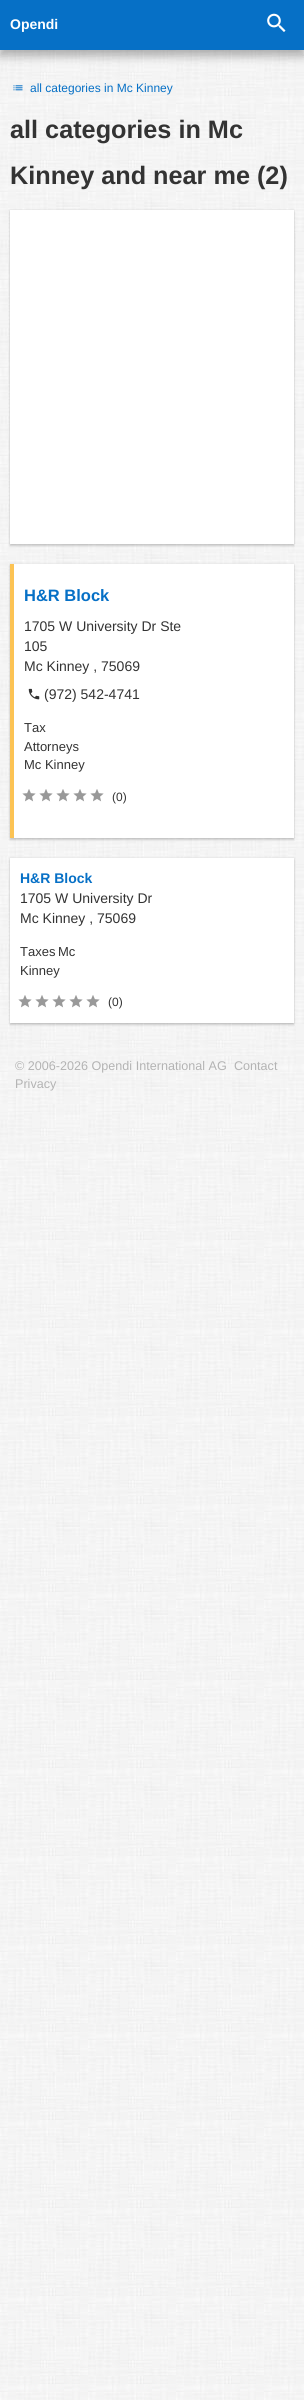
import math
import cairocffi as cairo

surface = cairo.ImageSurface(cairo.FORMAT_RGB24, 304, 2400)
cr = cairo.Context(surface)
options = cairo.FontOptions()
options.set_hint_metrics(cairo.HINT_METRICS_OFF)
options.set_hint_style(cairo.HINT_STYLE_NONE)
cr.set_font_options(options)
cr.set_miter_limit(4)


def use_color(code):
    cr.set_source_rgb(*(v / 255 for v in bytes.fromhex(code[-6:])))


def round_rect(x, y, w, h, r):
    cr.new_sub_path()
    for i, (u, v) in enumerate([(x + w - r, y + h - r), (x + r, y + h - r), (x + r, y + r), (x + w - r, y + r)]):
        cr.arc(u, v, r, i * math.pi / 2, (i + 1) * math.pi / 2)
    cr.close_path()


def shadow(x, y, w, h, r, blur, alpha):
    cr.push_group_with_content(cairo.CONTENT_ALPHA)
    cr.set_operator(cairo.OPERATOR_SOURCE)
    for i in range(15, -16, -2):
        e = blur * i / 6
        if min(w, h) + 2 * e > 0:
            cr.set_source_rgba(0, 0, 0, alpha * math.erfc((i - 1) / 8.5) / 2)
            round_rect(x - e, y - e, w + 2 * e, h + 2 * e, max(0, min(r + e + blur * .6, min(w, h) / 2 + e)))
            cr.fill()
    cr.mask(cr.pop_group())


def picture(path, x, y, w, h):
    cr.save()
    cr.set_source_surface(cairo.ImageSurface.create_from_png(path), x, y)
    cr.rectangle(x, y, w, h)
    cr.fill()
    cr.restore()


use_color("#ffffff")
cr.paint()
picture("img1.png", 0, 50, 304, 2350)
use_color("#000000")
shadow(0, 6, 304, 50, 0, 5, 0.3)
use_color("#0670c6")
cr.rectangle(0, 0, 304, 50)
cr.fill()
cr.select_font_face("Liberation Sans", cairo.FONT_SLANT_NORMAL, cairo.FONT_WEIGHT_BOLD)
cr.set_font_size(14)
use_color("#ffffff")
cr.move_to(10, 29)
cr.show_text("Opendi")
picture("img2.png", 267, 13, 19, 19)
picture("img3.png", 13, 85, 10, 6)
cr.select_font_face("Liberation Sans")
cr.set_font_size(12)
use_color("#0670c6")
cr.move_to(30, 92)
cr.show_text("all categories in Mc Kinney")
cr.select_font_face("Liberation Sans", cairo.FONT_SLANT_NORMAL, cairo.FONT_WEIGHT_BOLD)
cr.set_font_size(25.25)
use_color("#333333")
cr.move_to(10, 138)
cr.show_text("all categories in Mc")
cr.move_to(10, 184)
cr.show_text("Kinney and near me (2)")
use_color("#000000")
shadow(10, 210, 284, 334, 0, 1, 0.12)
shadow(10, 212, 284, 334, 0, 1, 0.16)
use_color("#ffffff")
cr.rectangle(10, 210, 284, 334)
cr.fill()
use_color("#000000")
shadow(10, 564, 284, 274, 0, 1, 0.12)
shadow(10, 566, 284, 274, 0, 1, 0.16)
use_color("#ffffff")
cr.rectangle(14, 564, 280, 274)
cr.fill()
use_color("#fcc354")
cr.rectangle(10, 564, 4, 274)
cr.fill()
cr.set_font_size(16.5)
use_color("#0670c6")
cr.move_to(24, 601)
cr.show_text("H&R Block")
cr.select_font_face("Liberation Sans")
cr.set_font_size(14)
use_color("#333333")
cr.move_to(24, 631)
cr.show_text("1705 W University Dr Ste")
cr.move_to(24, 651)
cr.show_text("105")
cr.move_to(24, 671)
cr.show_text("Mc Kinney , 75069")
picture("img4.png", 28, 688, 12, 12)
cr.move_to(44, 699)
cr.show_text("(972) 542-4741")
cr.set_font_size(13)
cr.move_to(24, 732)
cr.show_text("Tax")
cr.move_to(24, 751)
cr.show_text("Attorneys")
cr.move_to(24, 769)
cr.show_text("Mc Kinney")
picture("img5.png", 22, 789, 14, 13)
picture("img5.png", 39, 789, 14, 13)
picture("img5.png", 56, 789, 14, 13)
picture("img5.png", 73, 789, 14, 13)
picture("img5.png", 90, 789, 14, 13)
cr.set_font_size(12)
cr.move_to(112, 801)
cr.show_text("(0)")
use_color("#000000")
shadow(10, 858, 284, 165, 0, 1, 0.12)
shadow(10, 860, 284, 165, 0, 1, 0.16)
use_color("#ffffff")
cr.rectangle(10, 858, 284, 165)
cr.fill()
cr.select_font_face("Liberation Sans", cairo.FONT_SLANT_NORMAL, cairo.FONT_WEIGHT_BOLD)
cr.set_font_size(14)
use_color("#0670c6")
cr.move_to(20, 883)
cr.show_text("H&R Block")
cr.select_font_face("Liberation Sans")
use_color("#333333")
cr.move_to(20, 903)
cr.show_text("1705 W University Dr")
cr.move_to(20, 923)
cr.show_text("Mc Kinney , 75069")
cr.set_font_size(13)
cr.move_to(20, 956)
cr.show_text("Taxes")
cr.move_to(58, 956)
cr.show_text("Mc")
cr.move_to(20, 975)
cr.show_text("Kinney")
picture("img5.png", 18, 995, 14, 13)
picture("img5.png", 35, 995, 14, 13)
picture("img5.png", 52, 995, 14, 13)
picture("img5.png", 69, 995, 14, 13)
picture("img5.png", 86, 995, 14, 13)
cr.set_font_size(12)
cr.move_to(108, 1006)
cr.show_text("(0)")
cr.set_font_size(12.6)
use_color("#b3b3b3")
cr.move_to(15, 1070)
cr.show_text("© 2006-2026 Opendi International AG")
cr.move_to(234, 1070)
cr.show_text("Contact")
cr.move_to(15, 1088)
cr.show_text("Privacy")
surface.write_to_png("result.png")
